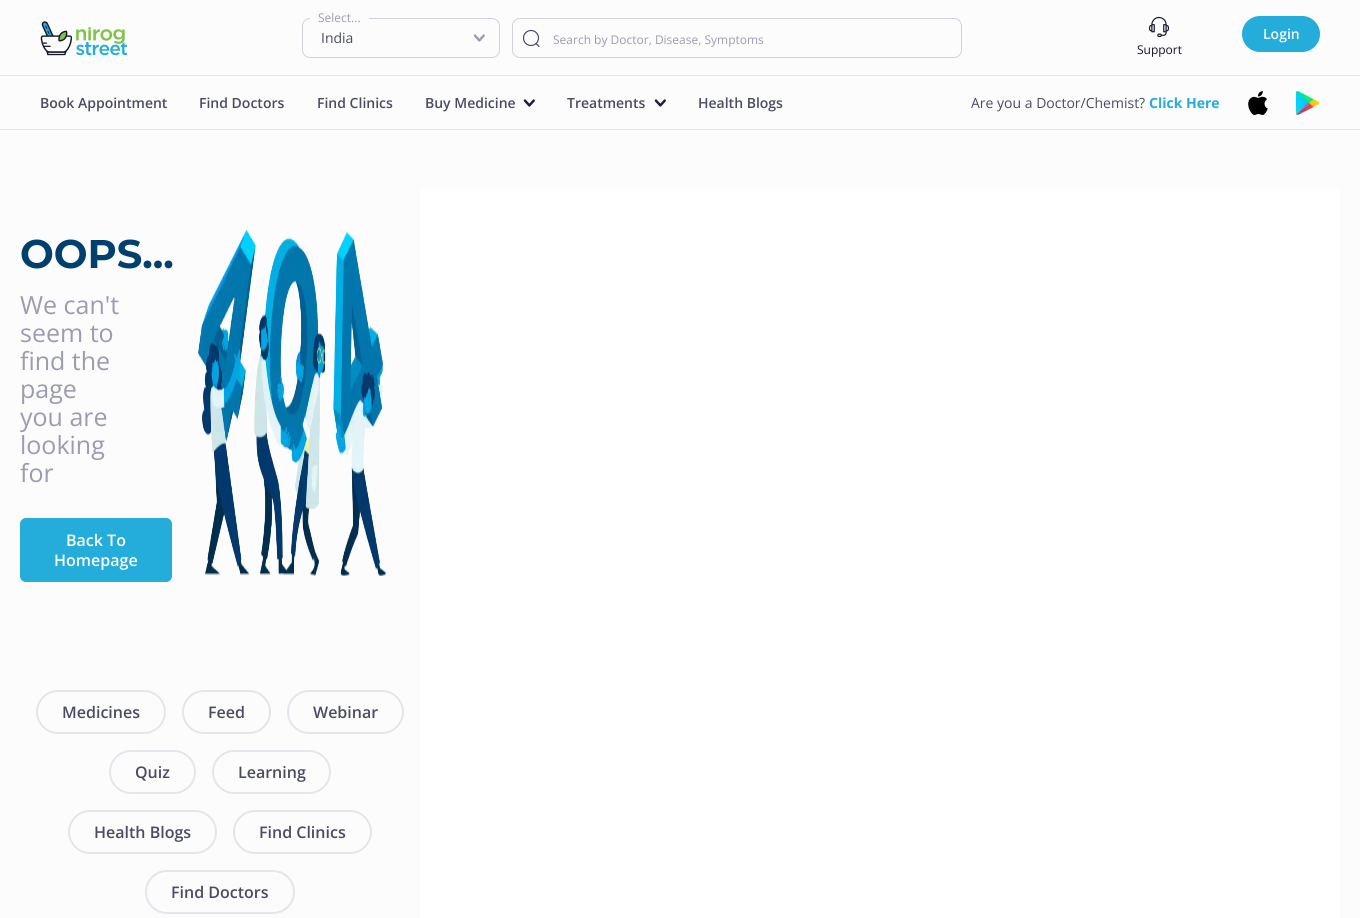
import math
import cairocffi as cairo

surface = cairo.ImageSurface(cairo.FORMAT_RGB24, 1360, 918)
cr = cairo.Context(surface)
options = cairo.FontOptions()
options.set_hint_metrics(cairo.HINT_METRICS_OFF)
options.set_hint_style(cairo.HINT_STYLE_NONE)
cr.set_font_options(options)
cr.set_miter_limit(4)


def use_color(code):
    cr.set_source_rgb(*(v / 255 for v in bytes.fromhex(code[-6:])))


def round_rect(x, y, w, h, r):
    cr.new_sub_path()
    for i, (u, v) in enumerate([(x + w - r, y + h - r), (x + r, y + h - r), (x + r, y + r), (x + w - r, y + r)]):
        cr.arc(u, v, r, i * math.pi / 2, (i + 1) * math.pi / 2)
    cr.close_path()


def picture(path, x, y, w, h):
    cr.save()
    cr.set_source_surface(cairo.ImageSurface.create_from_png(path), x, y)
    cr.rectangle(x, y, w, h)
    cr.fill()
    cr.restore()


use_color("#fcfcfc")
cr.paint()
use_color("#e5e5eb")
cr.rectangle(0, 75, 1360, 1)
cr.fill()
picture("img1.png", 40, 21, 88, 35)
round_rect(302.5, 18.5, 197, 39, 7.5)
use_color("#d1d1db")
cr.set_line_width(1)
cr.stroke()
use_color("#fcfcfc")
round_rect(310, 8, 59, 20, 10)
cr.fill()
cr.select_font_face("Open Sans")
cr.set_font_size(12)
use_color("#9c9caf")
cr.move_to(318, 22)
cr.show_text("Select...")
cr.set_font_size(14)
use_color("#4b4b63")
cr.move_to(321, 43)
cr.show_text("India")
picture("img2.png", 473, 34, 12, 8)
round_rect(512.5, 18.5, 449, 39, 7.5)
use_color("#d1d1db")
cr.stroke()
use_color("#fcfcfc")
round_rect(513, 19, 440, 38, 8)
cr.fill()
cr.arc(531, 38, 7.5, 0, 2 * math.pi)
use_color("#4b4b63")
cr.set_line_width(1.2)
cr.stroke()
cr.new_path()
cr.move_to(536, 43.5)
cr.line_to(539, 46.5)
cr.set_line_cap(cairo.LINE_CAP_ROUND)
cr.set_line_join(cairo.LINE_JOIN_ROUND)
cr.stroke()
cr.set_font_size(12)
use_color("#9c9caf")
cr.move_to(553, 44)
cr.show_text("Search by Doctor, Disease, Symptoms")
use_color("#24acda")
round_rect(1243, 17, 76, 34, 17)
cr.fill_preserve()
cr.set_line_width(2)
cr.set_line_cap(cairo.LINE_CAP_BUTT)
cr.set_line_join(cairo.LINE_JOIN_MITER)
cr.stroke()
cr.select_font_face("Open Sans SemiBold")
cr.set_font_size(14)
use_color("#fcfcfc")
cr.move_to(1263, 39)
cr.show_text("Login")
picture("img3.png", 1148, 16, 22, 22)
cr.select_font_face("Open Sans")
cr.set_font_size(12)
use_color("#14142b")
cr.move_to(1137, 54)
cr.show_text("Support")
use_color("#e5e5eb")
cr.rectangle(0, 129, 1360, 1)
cr.fill()
cr.select_font_face("Open Sans SemiBold")
cr.set_font_size(14)
use_color("#4b4b63")
cr.move_to(40, 108)
cr.show_text("Book Appointment")
cr.move_to(199, 108)
cr.show_text("Find Doctors")
cr.move_to(317, 108)
cr.show_text("Find Clinics")
cr.move_to(425, 108)
cr.show_text("Buy Medicine")
picture("img4.png", 523, 99, 12, 8)
cr.move_to(567, 108)
cr.show_text("Treatments")
picture("img4.png", 654, 99, 12, 8)
cr.move_to(698, 108)
cr.show_text("Health Blogs")
cr.select_font_face("Open Sans")
cr.move_to(971, 108)
cr.show_text("Are you a Doctor/Chemist?")
cr.select_font_face("Open Sans", cairo.FONT_SLANT_NORMAL, cairo.FONT_WEIGHT_BOLD)
use_color("#24acda")
cr.move_to(1149, 108)
cr.show_text("Click Here")
picture("img5.png", 1248, 91, 20, 24)
picture("img6.png", 1296, 91, 24, 24)
use_color("#ffffff")
cr.rectangle(420, 190, 920, 728)
cr.fill()
cr.select_font_face("Montserrat", cairo.FONT_SLANT_NORMAL, cairo.FONT_WEIGHT_BOLD)
cr.set_font_size(40)
use_color("#00406e")
cr.move_to(20, 268)
cr.show_text("OOPS...")
cr.select_font_face("Open Sans")
cr.set_font_size(25)
use_color("#9c9caf")
cr.move_to(20, 314)
cr.show_text("We can't")
cr.move_to(20, 342)
cr.show_text("seem to")
cr.move_to(20, 370)
cr.show_text("find the")
cr.move_to(20, 398)
cr.show_text("page")
cr.move_to(20, 426)
cr.show_text("you are")
cr.move_to(20, 454)
cr.show_text("looking")
cr.move_to(20, 482)
cr.show_text("for")
use_color("#24acda")
round_rect(21, 519, 150, 62, 5)
cr.fill_preserve()
cr.stroke()
cr.select_font_face("Open Sans SemiBold")
cr.set_font_size(16)
use_color("#fcfcfc")
cr.move_to(66, 546)
cr.show_text("Back To")
cr.move_to(54, 566)
cr.show_text("Homepage")
picture("img7.png", 198, 230, 188, 347)
round_rect(37, 691, 128, 42, 21)
use_color("#e5e5eb")
cr.stroke()
use_color("#4b4b63")
cr.move_to(62, 718)
cr.show_text("Medicines")
round_rect(183, 691, 87, 42, 21)
use_color("#e5e5eb")
cr.stroke()
use_color("#4b4b63")
cr.move_to(208, 718)
cr.show_text("Feed")
round_rect(288, 691, 115, 42, 21)
use_color("#e5e5eb")
cr.stroke()
use_color("#4b4b63")
cr.move_to(313, 718)
cr.show_text("Webinar")
round_rect(110, 751, 85, 42, 21)
use_color("#e5e5eb")
cr.stroke()
use_color("#4b4b63")
cr.move_to(135, 778)
cr.show_text("Quiz")
round_rect(213, 751, 117, 42, 21)
use_color("#e5e5eb")
cr.stroke()
use_color("#4b4b63")
cr.move_to(238, 778)
cr.show_text("Learning")
round_rect(69, 811, 147, 42, 21)
use_color("#e5e5eb")
cr.stroke()
use_color("#4b4b63")
cr.move_to(94, 838)
cr.show_text("Health Blogs")
round_rect(234, 811, 137, 42, 21)
use_color("#e5e5eb")
cr.stroke()
use_color("#4b4b63")
cr.move_to(259, 838)
cr.show_text("Find Clinics")
round_rect(146, 871, 148, 42, 21)
use_color("#e5e5eb")
cr.stroke()
use_color("#4b4b63")
cr.move_to(171, 898)
cr.show_text("Find Doctors")
surface.write_to_png("result.png")
